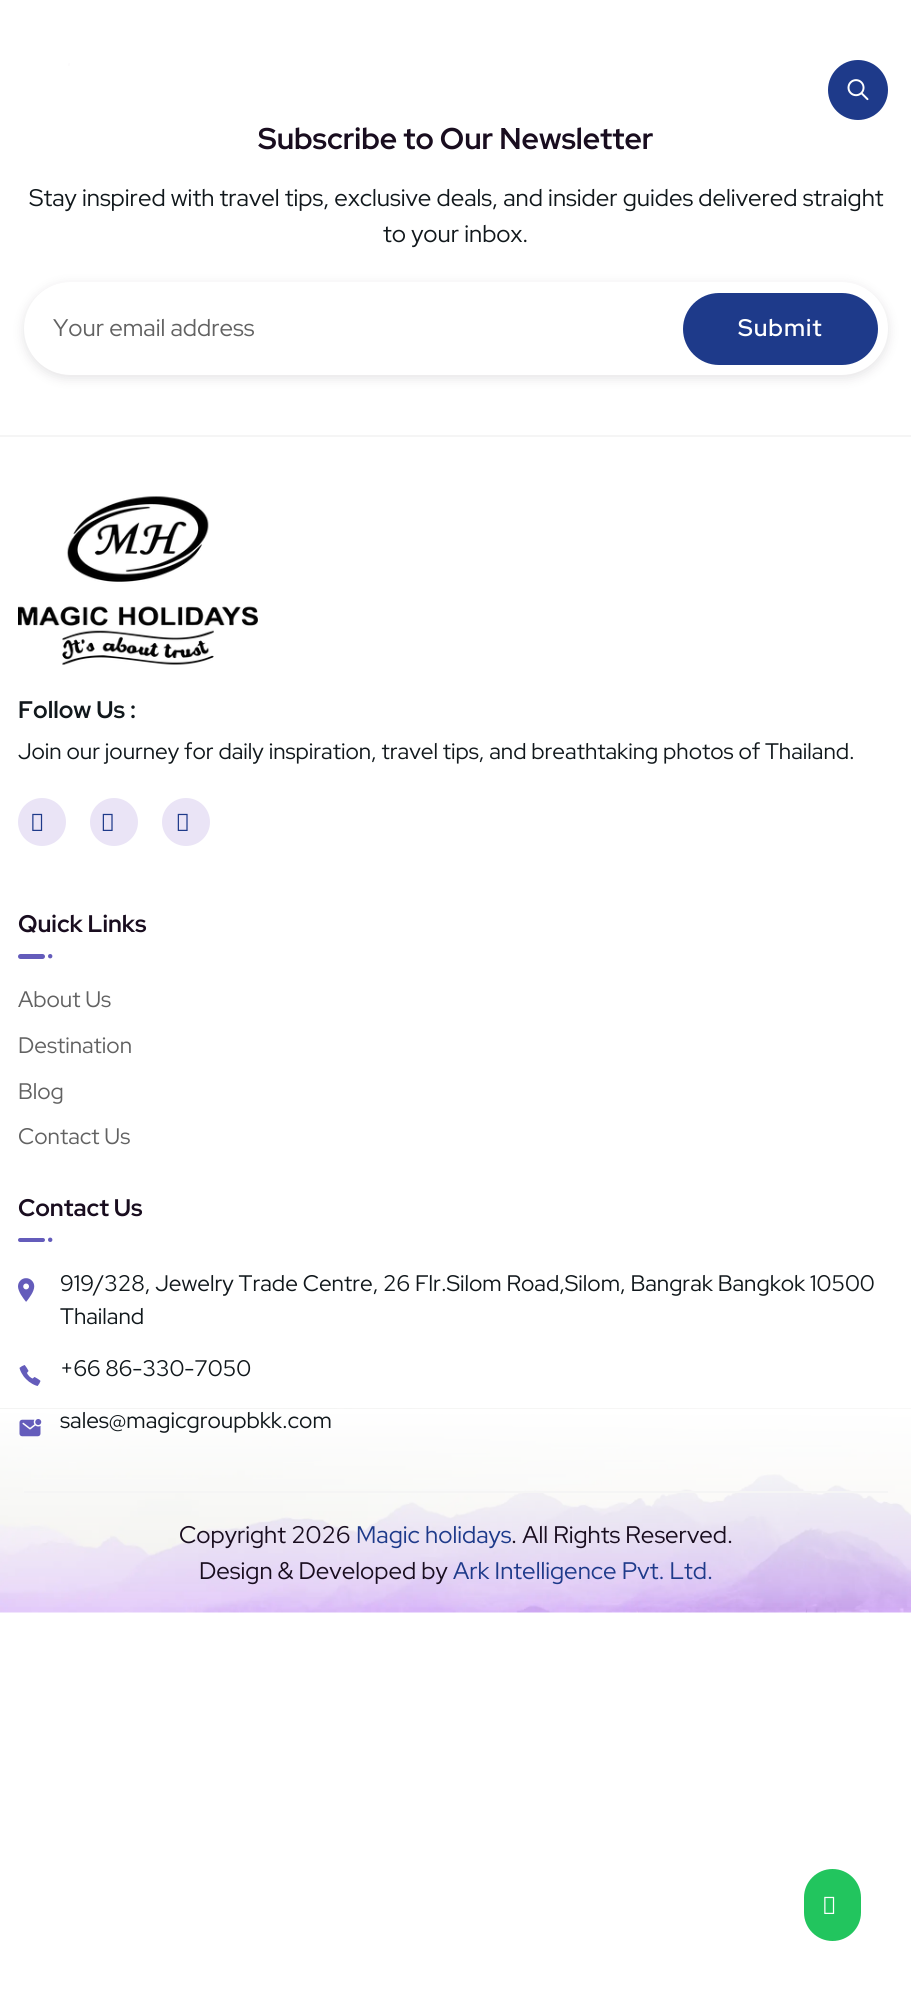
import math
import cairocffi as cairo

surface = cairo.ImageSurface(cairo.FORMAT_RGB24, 911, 2003)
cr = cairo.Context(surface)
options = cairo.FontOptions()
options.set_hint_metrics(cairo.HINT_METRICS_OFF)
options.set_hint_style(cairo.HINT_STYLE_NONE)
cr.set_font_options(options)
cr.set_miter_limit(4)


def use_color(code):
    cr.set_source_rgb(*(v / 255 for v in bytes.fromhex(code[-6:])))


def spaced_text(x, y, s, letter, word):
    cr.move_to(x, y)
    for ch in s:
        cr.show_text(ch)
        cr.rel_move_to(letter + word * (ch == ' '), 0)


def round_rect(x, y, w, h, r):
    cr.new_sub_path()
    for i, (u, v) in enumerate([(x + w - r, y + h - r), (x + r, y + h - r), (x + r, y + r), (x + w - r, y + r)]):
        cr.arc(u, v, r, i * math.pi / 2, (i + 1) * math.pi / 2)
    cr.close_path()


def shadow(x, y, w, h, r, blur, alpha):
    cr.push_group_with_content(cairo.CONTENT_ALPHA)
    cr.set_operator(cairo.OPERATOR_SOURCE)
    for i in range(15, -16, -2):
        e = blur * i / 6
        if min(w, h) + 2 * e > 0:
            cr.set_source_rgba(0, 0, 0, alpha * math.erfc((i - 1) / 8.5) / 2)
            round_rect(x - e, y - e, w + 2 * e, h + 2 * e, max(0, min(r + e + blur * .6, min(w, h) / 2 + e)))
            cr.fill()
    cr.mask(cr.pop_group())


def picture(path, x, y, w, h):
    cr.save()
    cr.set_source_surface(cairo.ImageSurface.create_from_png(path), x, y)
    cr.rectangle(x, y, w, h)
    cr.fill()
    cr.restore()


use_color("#ffffff")
cr.paint()
picture("img1.png", 68, 63, 2, 3)
use_color("#1e3a8a")
cr.arc(858, 90, 30, 0, 2 * math.pi)
cr.fill()
picture("img2.png", 847, 79, 22, 22)
cr.select_font_face("Red Hat Display", cairo.FONT_SLANT_NORMAL, cairo.FONT_WEIGHT_BOLD)
cr.set_font_size(30)
use_color("#190d1f")
cr.move_to(258, 149)
cr.show_text("Subscribe to Our Newsletter")
cr.select_font_face("Red Hat Display")
cr.set_font_size(24)
use_color("#11181c")
cr.move_to(29, 206)
cr.show_text("Stay inspired with travel tips, exclusive deals, and insider guides delivered straight")
cr.move_to(383, 242)
cr.show_text("to your inbox.")
use_color("#190d1f")
shadow(24, 285, 864, 93, 46.5, 6, 0.12)
use_color("#ffffff")
round_rect(25, 283, 862, 91, 45.5)
cr.fill_preserve()
cr.stroke()
use_color("#626262")
cr.move_to(53, 336)
cr.show_text("Your email address")
use_color("#1e3a8a")
round_rect(683, 293, 195, 72, 36)
cr.fill()
cr.select_font_face("Red Hat Display SemiBold")
use_color("#ffffff")
spaced_text(738, 336, "Submit", 1, 0)
use_color("#f5f5f5")
cr.rectangle(0, 435, 911, 2)
cr.fill()
picture("img3.png", 18, 496, 240, 169)
cr.select_font_face("Red Hat Display", cairo.FONT_SLANT_NORMAL, cairo.FONT_WEIGHT_BOLD)
use_color("#11181c")
cr.move_to(18, 718)
cr.show_text("Follow Us :")
cr.select_font_face("Red Hat Display")
cr.set_font_size(22.5)
cr.move_to(18, 759)
cr.show_text("Join our journey for daily inspiration, travel tips, and breathtaking photos of Thailand.")
use_color("#eae4f6")
cr.new_path()
cr.arc(42, 822, 24, 0, 2 * math.pi)
cr.fill()
picture("img4.png", 32, 813, 11, 18)
cr.arc(114, 822, 24, 0, 2 * math.pi)
cr.fill()
picture("img5.png", 102, 813, 11, 18)
cr.arc(186, 822, 24, 0, 2 * math.pi)
cr.fill()
picture("img5.png", 177, 813, 11, 18)
cr.select_font_face("Red Hat Display", cairo.FONT_SLANT_NORMAL, cairo.FONT_WEIGHT_BOLD)
cr.set_font_size(24)
use_color("#190d1f")
cr.move_to(18, 932)
cr.show_text("Quick Links")
use_color("#645cbb")
round_rect(18, 954, 27, 5, 2.5)
cr.fill()
cr.arc(50.2, 956.2, 2.2, 0, 2 * math.pi)
cr.fill()
cr.select_font_face("Red Hat Display")
cr.set_font_size(22.5)
use_color("#626262")
cr.move_to(18, 1007)
cr.show_text("About Us")
cr.move_to(18, 1053)
cr.show_text("Destination")
cr.move_to(18, 1099)
cr.show_text("Blog")
cr.move_to(18, 1144)
cr.show_text("Contact Us")
cr.select_font_face("Red Hat Display", cairo.FONT_SLANT_NORMAL, cairo.FONT_WEIGHT_BOLD)
cr.set_font_size(24)
use_color("#190d1f")
cr.move_to(18, 1216)
cr.show_text("Contact Us")
use_color("#645cbb")
round_rect(18, 1238, 27, 4, 2)
cr.fill()
cr.arc(50.2, 1239.8, 2.2, 0, 2 * math.pi)
cr.fill()
picture("img6.png", 18, 1278, 17, 24)
cr.select_font_face("Red Hat Display")
cr.set_font_size(22.5)
use_color("#11181c")
cr.move_to(60, 1291)
cr.show_text("919/328, Jewelry Trade Centre, 26 Flr.Silom Road,Silom, Bangrak Bangkok 10500")
cr.move_to(60, 1324)
cr.show_text("Thailand")
picture("img7.png", 19, 1365, 22, 21)
cr.move_to(60, 1376)
cr.show_text("+66 86-330-7050")
picture("img9.png", 0, 1408, 911, 205)
gradient = cairo.LinearGradient(456, 1409, 456, 1613)
gradient.add_color_stop_rgba(0, 1, 1, 1, 1)
gradient.add_color_stop_rgba(1, 1, 1, 1, 0)
cr.set_source(gradient)
cr.rectangle(0, 1409, 911, 198)
cr.fill()
picture("img8.png", 19, 1419, 23, 18)
use_color("#11181c")
cr.move_to(60, 1428)
cr.show_text("sales@magicgroupbkk.com")
use_color("#f5f5f5")
cr.rectangle(24, 1491, 864, 2)
cr.fill()
cr.set_font_size(24)
use_color("#190d1f")
cr.move_to(179, 1543)
cr.show_text("Copyright 2026")
use_color("#1e3a8a")
cr.move_to(356, 1543)
cr.show_text("Magic holidays")
use_color("#190d1f")
cr.move_to(511, 1543)
cr.show_text(". All Rights Reserved.")
cr.move_to(199, 1579)
cr.show_text("Design & Developed by")
use_color("#1e3a8a")
cr.move_to(453, 1579)
cr.show_text("Ark Intelligence Pvt. Ltd.")
use_color("#22c55e")
round_rect(802.5, 1867.5, 60, 75, 30)
cr.fill_preserve()
use_color("#ffffff")
cr.set_line_width(3)
cr.stroke()
picture("img10.png", 824, 1896, 11, 18)
surface.write_to_png("result.png")
